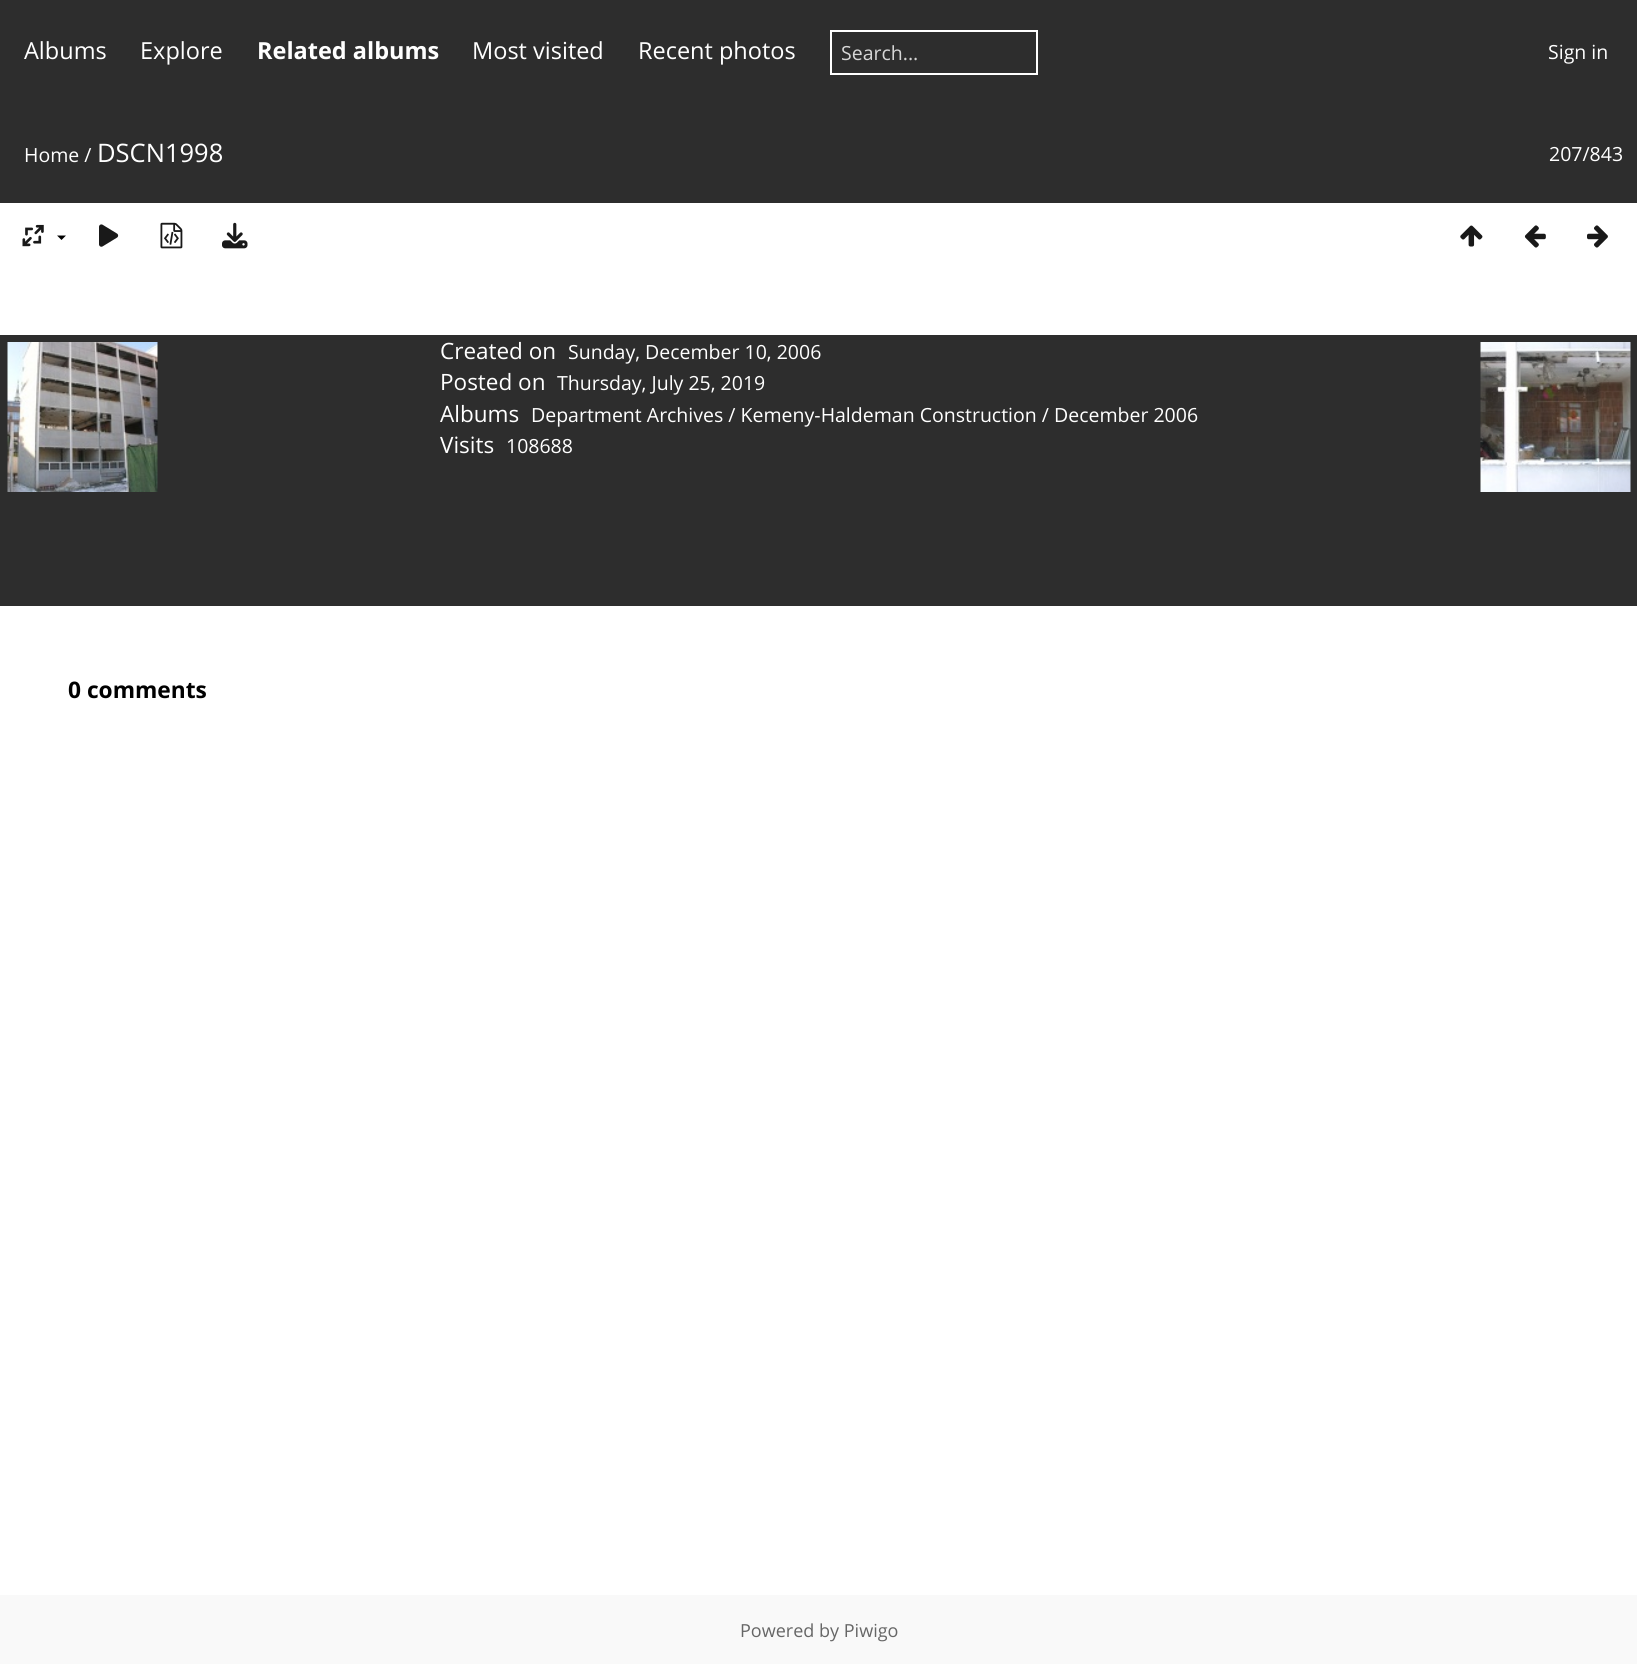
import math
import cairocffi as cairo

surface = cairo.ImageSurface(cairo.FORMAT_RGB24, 1637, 1664)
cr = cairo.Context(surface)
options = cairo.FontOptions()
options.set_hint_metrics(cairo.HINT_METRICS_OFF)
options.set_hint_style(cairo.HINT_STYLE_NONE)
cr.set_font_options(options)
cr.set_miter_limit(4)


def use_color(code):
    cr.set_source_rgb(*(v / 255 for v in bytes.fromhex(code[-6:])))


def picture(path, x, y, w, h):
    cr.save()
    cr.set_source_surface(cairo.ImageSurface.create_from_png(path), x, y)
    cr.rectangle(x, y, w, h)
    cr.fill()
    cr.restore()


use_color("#ffffff")
cr.paint()
use_color("#2d2d2d")
cr.rectangle(0, 0, 1637, 203)
cr.fill()
cr.select_font_face("Open Sans")
cr.set_font_size(23.5)
use_color("#ffffff")
cr.move_to(24, 59)
cr.show_text("Albums")
cr.move_to(140, 59)
cr.show_text("Explore")
cr.select_font_face("Open Sans", cairo.FONT_SLANT_NORMAL, cairo.FONT_WEIGHT_BOLD)
cr.move_to(257, 59)
cr.show_text("Related albums")
cr.select_font_face("Open Sans")
cr.move_to(472, 59)
cr.show_text("Most visited")
cr.move_to(638, 59)
cr.show_text("Recent photos")
cr.rectangle(831, 31, 206, 43)
cr.stroke()
cr.set_font_size(19.5)
use_color("#d6d6d6")
cr.move_to(841, 60)
cr.show_text("Search...")
use_color("#ffffff")
cr.move_to(1548, 59)
cr.show_text("Sign in")
cr.move_to(24, 162)
cr.show_text("Home /")
cr.set_font_size(25.5)
cr.move_to(97, 162)
cr.show_text("DSCN1998")
cr.set_font_size(19.5)
cr.move_to(1549, 161)
cr.show_text("207/843")
picture("img1.png", 22, 224, 22, 23)
use_color("#000000")
cr.new_path()
cr.move_to(57, 235.5)
cr.line_to(66, 235.5)
cr.line_to(61.5, 240)
cr.close_path()
cr.fill()
picture("img2.png", 99, 224, 20, 23)
picture("img3.png", 160, 222, 23, 27)
picture("img4.png", 222, 222, 26, 27)
picture("img5.png", 1460, 225, 23, 22)
picture("img6.png", 1524, 225, 22, 23)
picture("img7.png", 1587, 225, 21, 23)
use_color("#2d2d2d")
cr.rectangle(0, 335, 1637, 271)
cr.fill()
cr.set_font_size(22.5)
use_color("#ffffff")
cr.move_to(440, 359)
cr.show_text("Created on")
cr.set_font_size(19.5)
cr.move_to(568, 359)
cr.show_text("Sunday, December 10, 2006")
cr.set_font_size(22.5)
cr.move_to(440, 390)
cr.show_text("Posted on")
cr.set_font_size(19.5)
cr.move_to(557, 390)
cr.show_text("Thursday, July 25, 2019")
cr.set_font_size(22.5)
cr.move_to(440, 422)
cr.show_text("Albums")
cr.set_font_size(19.5)
cr.move_to(531, 422)
cr.show_text("Department Archives / Kemeny-Haldeman Construction / December 2006")
cr.set_font_size(22.5)
cr.move_to(440, 453)
cr.show_text("Visits")
cr.set_font_size(19.5)
cr.move_to(506, 453)
cr.show_text("108688")
picture("img8.png", 7, 342, 151, 150)
picture("img9.png", 1480, 342, 151, 150)
cr.select_font_face("Open Sans", cairo.FONT_SLANT_NORMAL, cairo.FONT_WEIGHT_BOLD)
cr.set_font_size(22.75)
use_color("#000000")
cr.move_to(68, 698)
cr.show_text("0 comments")
use_color("#f9f9f9")
cr.rectangle(0, 1595, 1637, 69)
cr.fill()
cr.select_font_face("Open Sans")
cr.set_font_size(18)
use_color("#666666")
cr.move_to(740, 1637)
cr.show_text("Powered by Piwigo")
surface.write_to_png("result.png")
